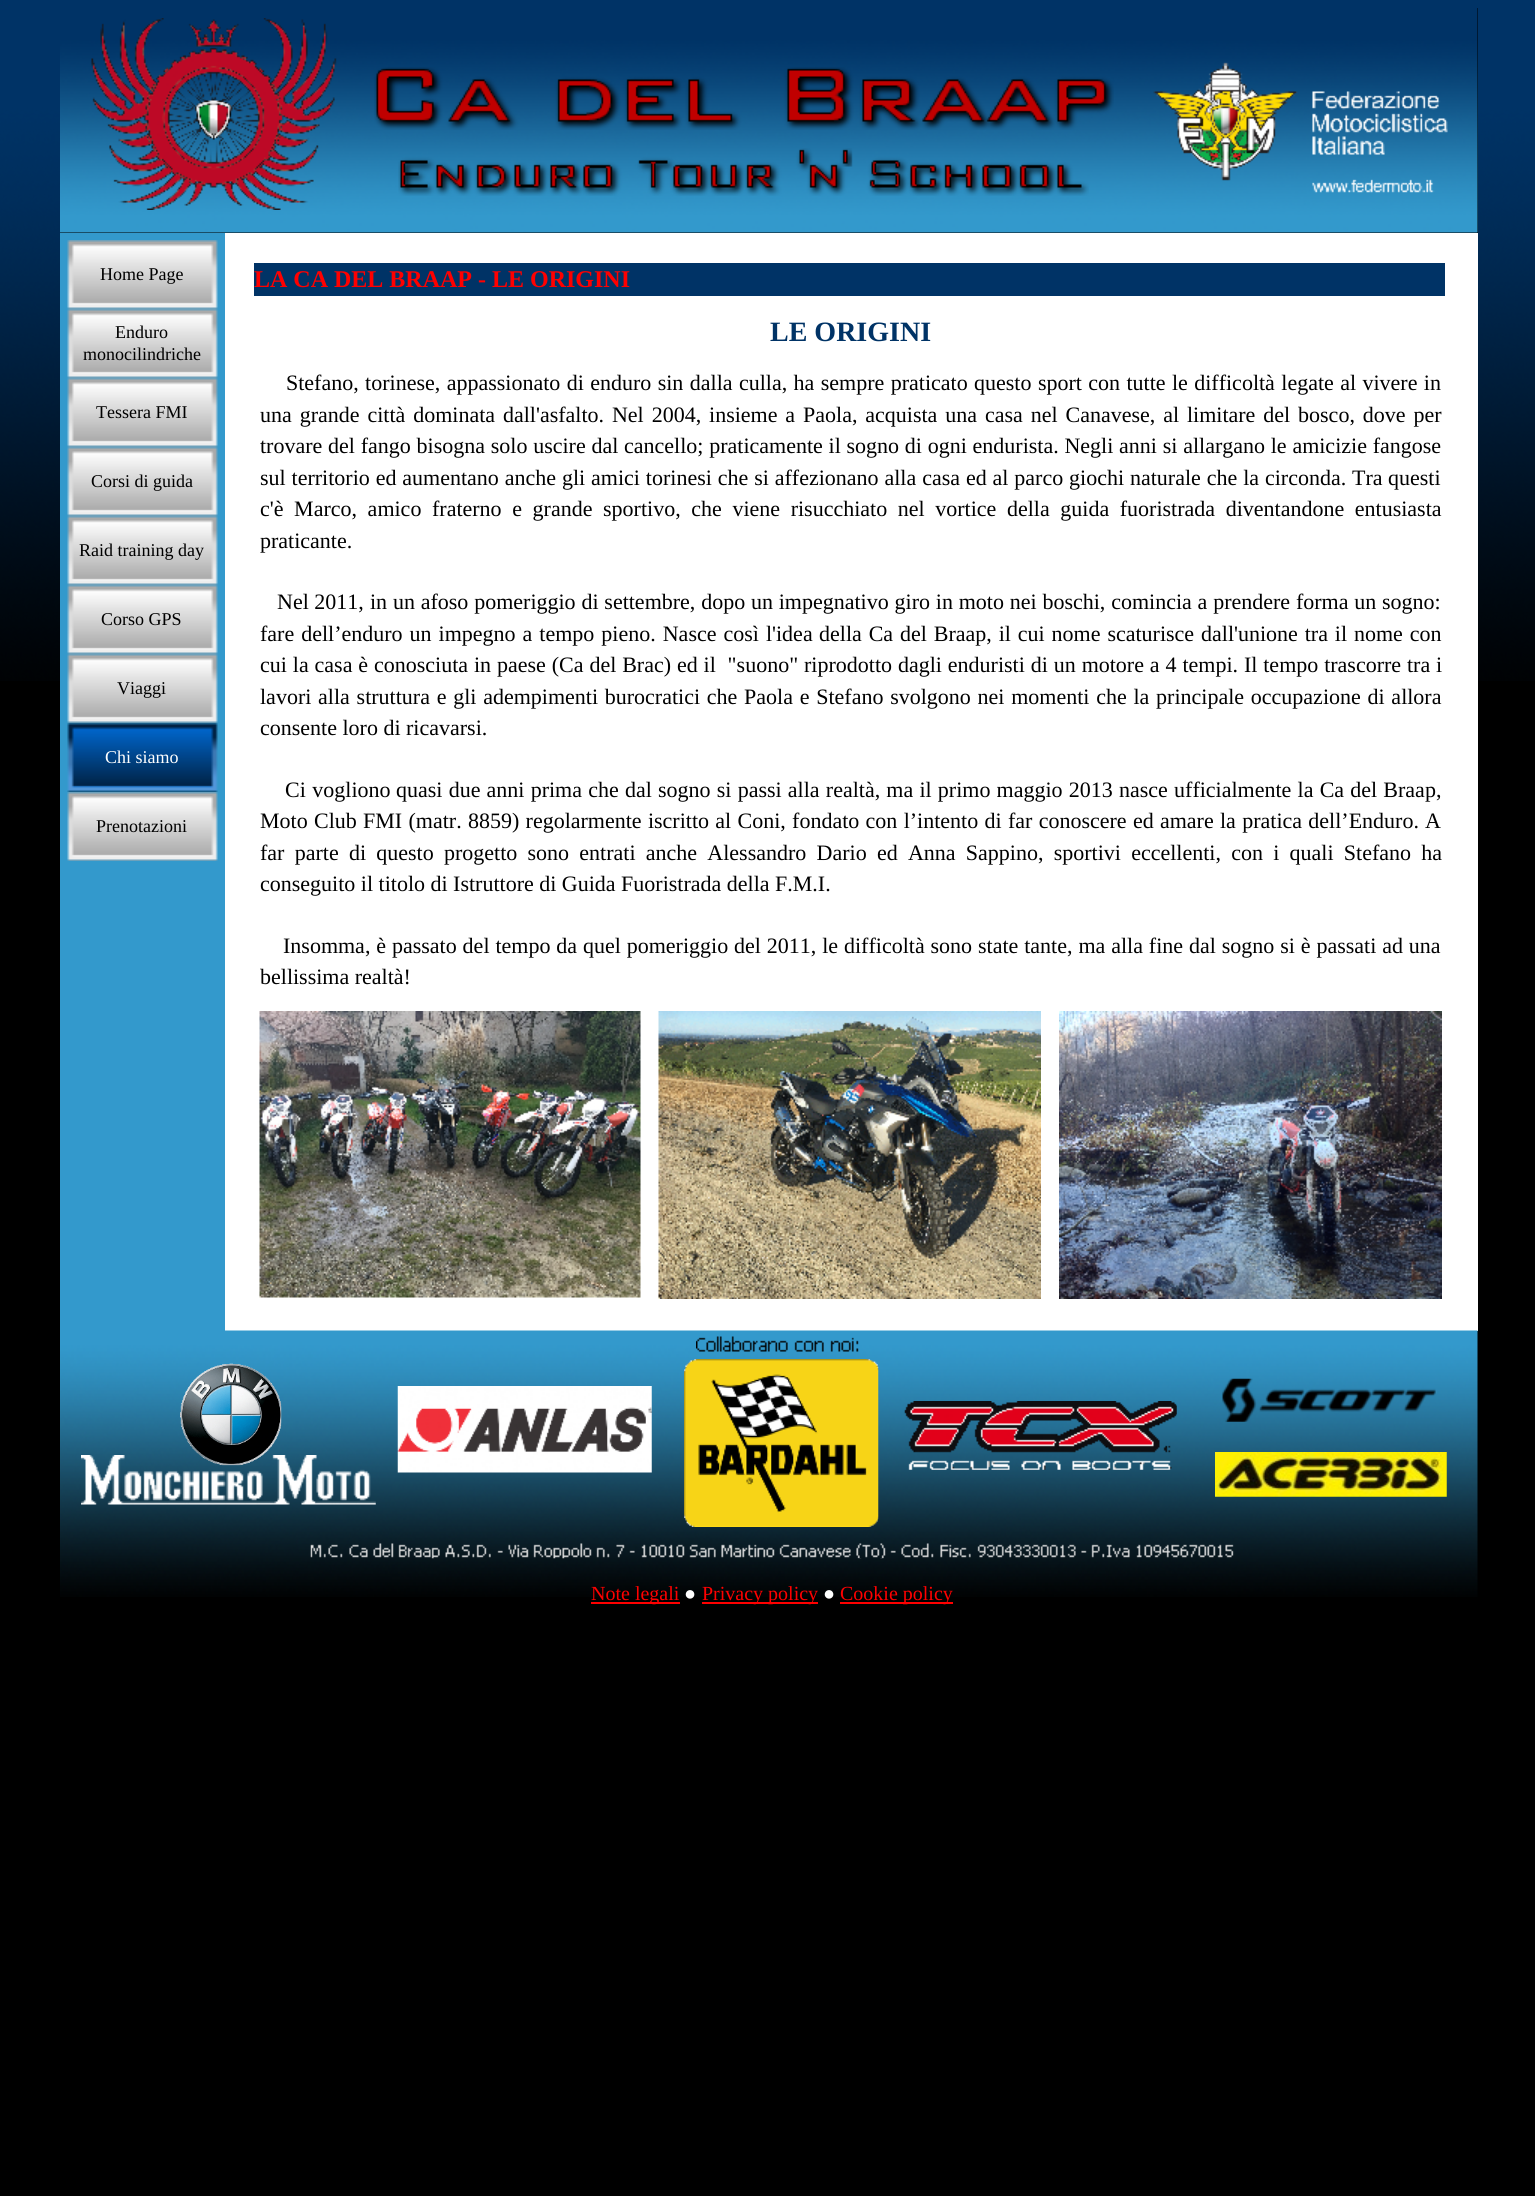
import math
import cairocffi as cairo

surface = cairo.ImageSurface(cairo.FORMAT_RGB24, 1535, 2196)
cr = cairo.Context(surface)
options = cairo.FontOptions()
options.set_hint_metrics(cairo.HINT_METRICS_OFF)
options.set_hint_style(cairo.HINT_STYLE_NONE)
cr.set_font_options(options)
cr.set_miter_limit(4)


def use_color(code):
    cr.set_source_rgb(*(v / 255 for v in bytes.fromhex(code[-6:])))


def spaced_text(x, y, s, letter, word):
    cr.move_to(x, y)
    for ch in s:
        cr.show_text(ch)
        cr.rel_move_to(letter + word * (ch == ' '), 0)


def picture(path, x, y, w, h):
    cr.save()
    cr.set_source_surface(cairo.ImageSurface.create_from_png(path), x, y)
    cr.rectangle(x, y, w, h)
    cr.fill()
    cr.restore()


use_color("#000000")
cr.paint()
picture("img1.png", 0, 0, 1535, 681)
use_color("#000000")
cr.rectangle(60, 8, 1418, 225)
cr.fill()
picture("img2.png", 60, 8, 1418, 225)
picture("img3.png", 91, 18, 246, 192)
picture("img4.png", 374, 67, 740, 63)
picture("img5.png", 1153, 62, 295, 131)
picture("img6.png", 398, 148, 691, 48)
use_color("#ffffff")
cr.rectangle(225, 233, 1253, 1098)
cr.fill()
picture("img12.png", 60, 1330, 1418, 267)
use_color("#3399cc")
cr.rectangle(60, 233, 165, 1098)
cr.fill()
picture("img7.png", 67, 240, 151, 69)
cr.select_font_face("Liberation Serif")
cr.set_font_size(18)
use_color("#000000")
cr.move_to(100, 280)
cr.show_text("Home Page")
picture("img7.png", 67, 309, 151, 69)
cr.move_to(115, 338)
cr.show_text("Enduro")
cr.move_to(83, 360)
cr.show_text("monocilindriche")
picture("img7.png", 67, 378, 151, 69)
cr.move_to(96, 418)
cr.show_text("Tessera FMI")
picture("img7.png", 67, 447, 151, 69)
cr.move_to(91, 487)
cr.show_text("Corsi di guida")
picture("img7.png", 67, 516, 151, 69)
cr.move_to(79, 556)
cr.show_text("Raid training day")
picture("img7.png", 67, 585, 151, 69)
cr.move_to(101, 625)
cr.show_text("Corso GPS")
picture("img7.png", 67, 654, 151, 69)
cr.move_to(117, 694)
cr.show_text("Viaggi")
picture("img8.png", 67, 723, 151, 69)
use_color("#ffffff")
cr.move_to(105, 763)
cr.show_text("Chi siamo")
picture("img7.png", 67, 792, 151, 69)
use_color("#000000")
cr.move_to(96, 832)
cr.show_text("Prenotazioni")
use_color("#003366")
cr.rectangle(254, 263, 1191, 33)
cr.fill()
cr.select_font_face("Liberation Serif", cairo.FONT_SLANT_NORMAL, cairo.FONT_WEIGHT_BOLD)
cr.set_font_size(24)
use_color("#ff0000")
cr.move_to(254, 287)
cr.show_text("LA CA DEL BRAAP - LE ORIGINI")
cr.set_font_size(28)
use_color("#003366")
cr.move_to(770, 341)
cr.show_text("LE ORIGINI")
cr.select_font_face("Liberation Serif")
cr.set_font_size(22)
use_color("#000000")
spaced_text(286, 390, "Stefano, torinese, appassionato di enduro sin dalla culla, ha sempre praticato questo sport con tutte le difficoltà legate al vivere in", 0, 0.9)
spaced_text(260, 422, "una grande città dominata dall'asfalto. Nel 2004, insieme a Paola, acquista una casa nel Canavese, al limitare del bosco, dove per", 0, 2.4)
spaced_text(260, 453, "trovare del fango bisogna solo uscire dal cancello; praticamente il sogno di ogni endurista. Negli anni si allargano le amicizie fangose", 0, 0.25)
spaced_text(260, 485, "sul territorio ed aumentano anche gli amici torinesi che si affezionano alla casa ed al parco giochi naturale che la circonda.", 0, 0.4)
cr.move_to(1352, 485)
cr.show_text("Tra questi")
spaced_text(260, 516, "c'è Marco, amico fraterno e grande sportivo, che viene risucchiato nel vortice della guida fuoristrada diventandone entusiasta", 0, 5.1)
cr.move_to(260, 548)
cr.show_text("praticante.")
cr.move_to(277, 609)
cr.show_text("Nel 2011,")
spaced_text(370, 609, "in un afoso pomeriggio di settembre, dopo un impegnativo giro in moto nei boschi, comincia a prendere forma un sogno:", 0, 0.3)
spaced_text(260, 641, "fare dell’enduro un impegno a tempo pieno. Nasce così l'idea", 0, 1.5)
spaced_text(819, 641, "della Ca del Braap, il cui nome scaturisce dall'unione tra il nome con", 0, 1.4)
spaced_text(260, 672, "cui la casa è conosciuta in paese (Ca del Brac) ed il  \"suono\" riprodotto dagli enduristi di un motore a 4 tempi. Il tempo trascorre tra i", 0, 0.4)
spaced_text(260, 704, "lavori alla struttura e gli adempimenti burocratici che Paola e Stefano svolgono nei momenti che la principale occupazione di allora", 0, 1.25)
cr.move_to(260, 735)
cr.show_text("consente loro di ricavarsi.")
spaced_text(285, 797, "Ci vogliono", 0, 1)
spaced_text(396, 797, "quasi due anni prima che dal sogno si passi alla realtà, ma il primo maggio 2013 nasce ufficialmente la Ca del Braap,", 0, 0.7)
spaced_text(260, 828, "Moto Club FMI (matr. 8859) regolarmente iscritto al Coni, fondato con l’intento di far conoscere ed amare la pratica dell’Enduro.", 0, 0.8)
cr.move_to(1425, 828)
cr.show_text("A")
spaced_text(260, 860, "far parte di questo progetto sono entrati anche Alessandro Dario ed Anna Sappino, sportivi eccellenti, con i quali Stefano ha", 0, 4.75)
cr.move_to(260, 891)
cr.show_text("conseguito il titolo di Istruttore di Guida Fuoristrada della F.M.I.")
spaced_text(283, 953, "Insomma, è passato del tempo da quel pomeriggio del 2011, le difficoltà sono state tante, ma alla fine dal sogno si è passati ad una", 0, 0.4)
cr.move_to(260, 984)
cr.show_text("bellissima realtà!")
picture("img9.png", 259, 1011, 382, 287)
picture("img10.png", 658, 1011, 383, 288)
picture("img11.png", 1059, 1011, 383, 288)
picture("img13.png", 696, 1336, 163, 16)
picture("img14.png", 180, 1363, 102, 103)
picture("img15.png", 397, 1386, 255, 87)
picture("img16.png", 684, 1359, 195, 168)
picture("img17.png", 904, 1401, 273, 69)
picture("img18.png", 1222, 1378, 215, 44)
picture("img19.png", 81, 1455, 295, 50)
picture("img20.png", 1215, 1452, 232, 45)
picture("img21.png", 310, 1543, 924, 16)
use_color("#ff0000")
cr.rectangle(591, 1602, 89, 2)
cr.fill()
cr.set_font_size(20)
cr.move_to(591, 1600)
cr.show_text("Note legali")
use_color("#ffffff")
cr.move_to(684, 1600)
cr.show_text("●")
use_color("#ff0000")
cr.rectangle(702, 1602, 116, 2)
cr.fill()
cr.move_to(702, 1600)
cr.show_text("Privacy policy")
use_color("#ffffff")
cr.move_to(823, 1600)
cr.show_text("●")
use_color("#ff0000")
cr.rectangle(840, 1602, 113, 2)
cr.fill()
cr.move_to(840, 1600)
cr.show_text("Cookie policy")
surface.write_to_png("result.png")
